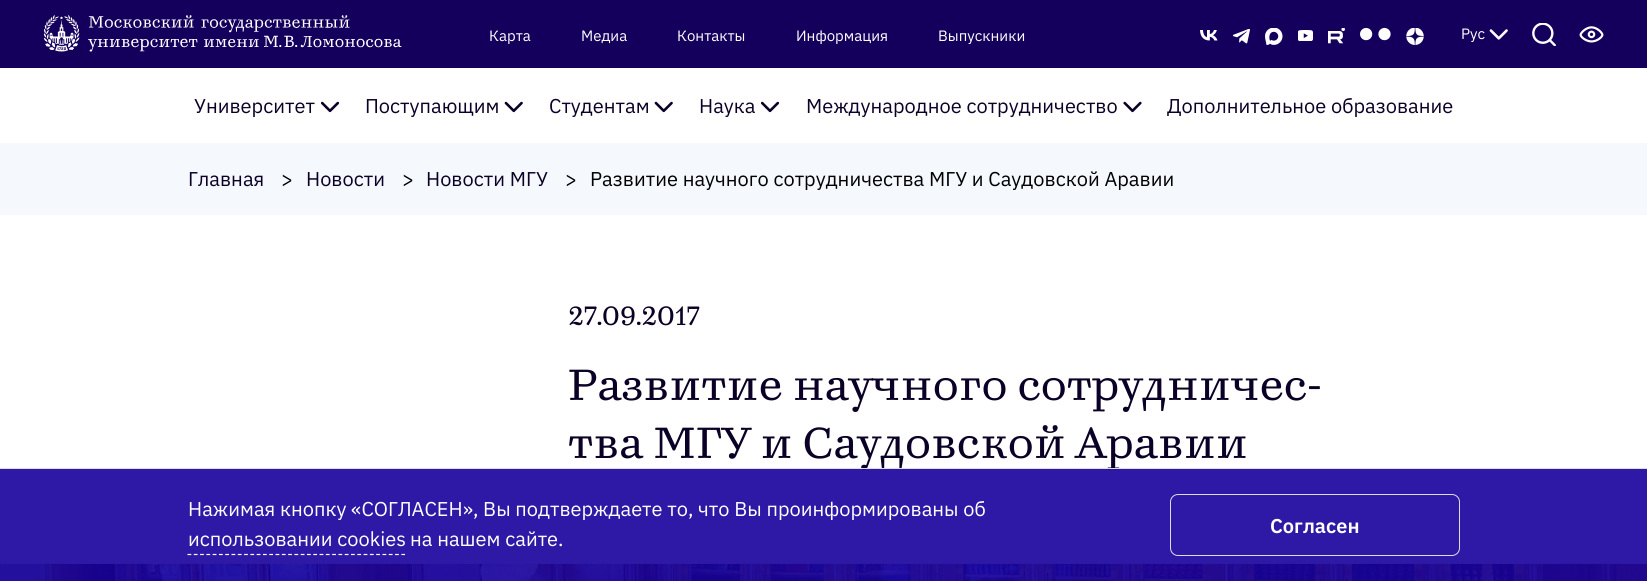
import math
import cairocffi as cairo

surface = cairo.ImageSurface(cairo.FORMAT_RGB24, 1647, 581)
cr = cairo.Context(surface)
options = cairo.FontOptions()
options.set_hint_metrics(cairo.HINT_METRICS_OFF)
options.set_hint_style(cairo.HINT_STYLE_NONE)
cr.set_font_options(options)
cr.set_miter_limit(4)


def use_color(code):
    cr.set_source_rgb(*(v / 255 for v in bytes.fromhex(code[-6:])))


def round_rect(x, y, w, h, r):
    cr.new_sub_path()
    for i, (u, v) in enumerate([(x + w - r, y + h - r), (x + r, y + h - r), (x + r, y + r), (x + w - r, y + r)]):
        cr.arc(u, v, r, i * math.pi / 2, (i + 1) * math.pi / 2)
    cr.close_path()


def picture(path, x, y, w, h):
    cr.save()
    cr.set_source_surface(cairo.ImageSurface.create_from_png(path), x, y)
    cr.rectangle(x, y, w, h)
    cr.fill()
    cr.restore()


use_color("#ffffff")
cr.paint()
use_color("#14005c")
cr.rectangle(0, 0, 1647, 68)
cr.fill()
picture("img1.png", 43, 15, 359, 37)
cr.select_font_face("IBM Plex Sans")
cr.set_font_size(15)
use_color("#ffffff")
cr.move_to(489, 41)
cr.show_text("Карта")
cr.move_to(581, 41)
cr.show_text("Медиа")
cr.move_to(677, 41)
cr.show_text("Контакты")
cr.move_to(796, 41)
cr.show_text("Информация")
cr.move_to(938, 41)
cr.show_text("Выпускники")
picture("img2.png", 1200, 30, 18, 11)
picture("img3.png", 1233, 29, 17, 15)
picture("img4.png", 1265, 28, 18, 17)
picture("img5.png", 1298, 30, 15, 11)
picture("img6.png", 1328, 28, 17, 16)
picture("img7.png", 1360, 27, 31, 14)
picture("img8.png", 1406, 28, 18, 17)
cr.move_to(1461, 39)
cr.show_text("Рус")
picture("img9.png", 1489, 29, 19, 11)
picture("img10.png", 1532, 23, 24, 23)
picture("img11.png", 1579, 26, 25, 17)
cr.set_font_size(20)
use_color("#0b0026")
cr.move_to(194, 113)
cr.show_text("Университет")
picture("img12.png", 320, 101, 20, 12)
cr.move_to(365, 113)
cr.show_text("Поступающим")
picture("img13.png", 504, 101, 19, 12)
cr.move_to(549, 113)
cr.show_text("Студентам")
picture("img13.png", 654, 101, 19, 12)
cr.move_to(699, 113)
cr.show_text("Наука")
picture("img12.png", 760, 101, 20, 12)
cr.move_to(806, 113)
cr.show_text("Международное сотрудничество")
picture("img14.png", 1123, 101, 19, 12)
cr.move_to(1167, 113)
cr.show_text("Дополнительное образование")
use_color("#f5f8fd")
cr.rectangle(0, 143, 1647, 72)
cr.fill()
use_color("#0b0026")
cr.move_to(188, 186)
cr.show_text("Главная")
use_color("#000000")
cr.move_to(281, 186)
cr.show_text(">")
use_color("#0b0026")
cr.move_to(306, 186)
cr.show_text("Новости")
use_color("#000000")
cr.move_to(402, 186)
cr.show_text(">")
use_color("#0b0026")
cr.move_to(426, 186)
cr.show_text("Новости МГУ")
use_color("#000000")
cr.move_to(565, 186)
cr.show_text(">")
cr.move_to(590, 186)
cr.show_text("Развитие научного сотрудничества МГУ и Саудовской Аравии")
cr.select_font_face("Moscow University")
cr.set_font_size(27.5)
use_color("#0b0026")
cr.move_to(568, 325)
cr.show_text("27.09.2017")
cr.set_font_size(45)
cr.move_to(568, 400)
cr.show_text("Развитие научного сотрудничес-")
cr.move_to(568, 458)
cr.show_text("тва МГУ и Саудовской Аравии")
picture("img15.png", 0, 563, 1647, 18)
use_color("#dbdee7")
cr.rectangle(0, 468, 1647, 1)
cr.fill()
cr.set_source_rgba(0.09, 0, 0.608, 0.9)
cr.rectangle(0, 469, 1647, 112)
cr.fill()
cr.select_font_face("IBM Plex Sans")
cr.set_font_size(20)
use_color("#ffffff")
cr.move_to(188, 516)
cr.show_text("Нажимая кнопку «СОГЛАСЕН», Вы подтверждаете то, что Вы проинформированы об")
cr.new_path()
cr.move_to(187.5, 554.5)
cr.line_to(405, 554.5)
cr.set_line_width(1.2)
cr.set_dash([3.75, 2.54])
cr.stroke()
cr.move_to(188, 546)
cr.show_text("использовании cookies")
cr.move_to(410, 546)
cr.show_text("на нашем сайте.")
round_rect(1170.5, 494.5, 289, 61, 7.5)
use_color("#dbdee7")
cr.set_line_width(1)
cr.set_dash([])
cr.stroke()
cr.select_font_face("IBM Plex Sans SemiBold")
use_color("#ffffff")
cr.move_to(1270, 533)
cr.show_text("Согласен")
surface.write_to_png("result.png")
